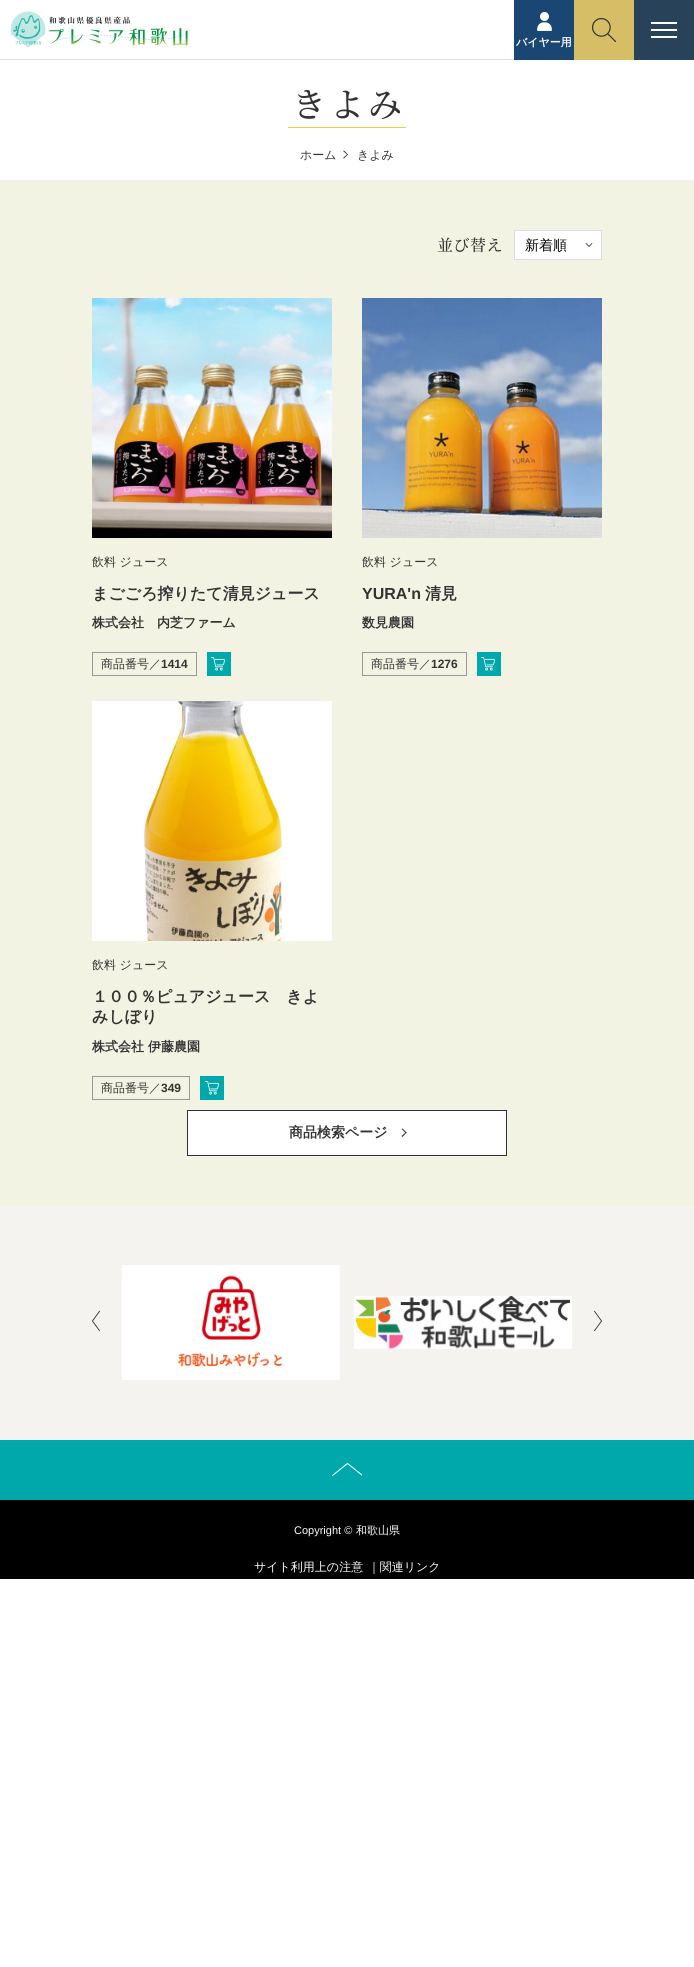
import math
import cairocffi as cairo

surface = cairo.ImageSurface(cairo.FORMAT_RGB24, 694, 1967)
cr = cairo.Context(surface)
options = cairo.FontOptions()
options.set_hint_metrics(cairo.HINT_METRICS_OFF)
options.set_hint_style(cairo.HINT_STYLE_NONE)
cr.set_font_options(options)
cr.set_miter_limit(4)


def use_color(code):
    cr.set_source_rgb(*(v / 255 for v in bytes.fromhex(code[-6:])))


def spaced_text(x, y, s, letter, word):
    cr.move_to(x, y)
    for ch in s:
        cr.show_text(ch)
        cr.rel_move_to(letter + word * (ch == ' '), 0)


def picture(path, x, y, w, h):
    cr.save()
    cr.set_source_surface(cairo.ImageSurface.create_from_png(path), x, y)
    cr.rectangle(x, y, w, h)
    cr.fill()
    cr.restore()


use_color("#ffffff")
cr.paint()
use_color("#dddddd")
cr.rectangle(0, 59, 514, 1)
cr.fill()
picture("img1.png", 10, 11, 178, 37)
use_color("#194673")
cr.rectangle(514, 0, 60, 60)
cr.fill()
picture("img2.png", 537, 12, 15, 19)
cr.select_font_face("WenQuanYi Zen Hei", cairo.FONT_SLANT_NORMAL, cairo.FONT_WEIGHT_BOLD)
cr.set_font_size(11)
use_color("#ffffff")
cr.move_to(516, 46)
cr.show_text("バイヤー用")
use_color("#284359")
cr.rectangle(634, 0, 60, 60)
cr.fill()
use_color("#ffffff")
cr.rectangle(651, 22, 26, 2)
cr.fill()
cr.rectangle(651, 29, 26, 2)
cr.fill()
cr.rectangle(651, 36, 26, 2)
cr.fill()
use_color("#d6be66")
cr.rectangle(574, 0, 60, 60)
cr.fill()
picture("img3.png", 592, 18, 24, 24)
cr.select_font_face("Noto Serif JP Medium")
cr.set_font_size(34)
use_color("#333333")
spaced_text(292, 117, "きよみ", 4, 0)
use_color("#eccf2c")
cr.rectangle(288, 127, 118, 1)
cr.fill()
cr.select_font_face("WenQuanYi Zen Hei Medium")
cr.set_font_size(12)
use_color("#333333")
cr.move_to(300, 159)
cr.show_text("ホーム")
cr.new_path()
cr.move_to(344, 150.5)
cr.line_to(348, 154.5)
cr.line_to(347.5, 155)
cr.line_to(343, 151)
cr.close_path()
cr.fill()
cr.new_path()
cr.move_to(347.5, 154)
cr.line_to(348, 154.5)
cr.line_to(344, 158.5)
cr.line_to(343, 158)
cr.close_path()
cr.fill()
cr.move_to(357, 159)
cr.show_text("きよみ")
use_color("#f3f3e4")
cr.rectangle(0, 180, 694, 1026)
cr.fill()
cr.select_font_face("Noto Serif JP Medium")
cr.set_font_size(16)
use_color("#333333")
spaced_text(437, 251, "並び替え", 0.5, 0)
use_color("#ffffff")
cr.rectangle(515, 231, 86, 28)
cr.fill()
picture("img4.png", 585, 243, 8, 4)
cr.rectangle(514.5, 230.5, 87, 29)
use_color("#dddddd")
cr.set_line_width(1)
cr.stroke()
cr.select_font_face("WenQuanYi Zen Hei Medium")
cr.set_font_size(14)
use_color("#000000")
cr.move_to(525, 250)
cr.show_text("新着順")
picture("img5.png", 92, 298, 240, 240)
cr.set_font_size(12)
use_color("#333333")
cr.move_to(92, 566)
cr.show_text("飲料 ジュース")
cr.select_font_face("WenQuanYi Zen Hei", cairo.FONT_SLANT_NORMAL, cairo.FONT_WEIGHT_BOLD)
cr.set_font_size(16)
cr.move_to(92, 599)
cr.show_text("まごごろ搾りたて清見ジュース")
cr.set_font_size(13)
cr.move_to(92, 627)
cr.show_text("株式会社　内芝ファーム")
cr.rectangle(92.5, 652.5, 104, 23)
use_color("#999999")
cr.stroke()
cr.select_font_face("WenQuanYi Zen Hei Medium")
cr.set_font_size(12)
use_color("#333333")
cr.move_to(101, 668)
cr.show_text("商品番号／")
cr.select_font_face("Liberation Sans", cairo.FONT_SLANT_NORMAL, cairo.FONT_WEIGHT_BOLD)
cr.move_to(161, 668)
cr.show_text("1414")
use_color("#00a8ab")
cr.rectangle(207, 652, 24, 24)
cr.fill()
picture("img6.png", 211, 657, 14, 14)
picture("img7.png", 362, 298, 240, 240)
cr.select_font_face("WenQuanYi Zen Hei Medium")
use_color("#333333")
cr.move_to(362, 566)
cr.show_text("飲料 ジュース")
cr.select_font_face("Liberation Sans", cairo.FONT_SLANT_NORMAL, cairo.FONT_WEIGHT_BOLD)
cr.set_font_size(16)
cr.move_to(362, 599)
cr.show_text("YURA'n")
cr.select_font_face("WenQuanYi Zen Hei", cairo.FONT_SLANT_NORMAL, cairo.FONT_WEIGHT_BOLD)
cr.move_to(425, 599)
cr.show_text("清見")
cr.set_font_size(13)
cr.move_to(362, 627)
cr.show_text("数見農園")
cr.rectangle(362.5, 652.5, 104, 23)
use_color("#999999")
cr.stroke()
cr.select_font_face("WenQuanYi Zen Hei Medium")
cr.set_font_size(12)
use_color("#333333")
cr.move_to(371, 668)
cr.show_text("商品番号／")
cr.select_font_face("Liberation Sans", cairo.FONT_SLANT_NORMAL, cairo.FONT_WEIGHT_BOLD)
cr.move_to(431, 668)
cr.show_text("1276")
use_color("#00a8ab")
cr.rectangle(477, 652, 24, 24)
cr.fill()
picture("img6.png", 481, 657, 14, 14)
picture("img8.png", 92, 701, 240, 240)
cr.select_font_face("WenQuanYi Zen Hei Medium")
use_color("#333333")
cr.move_to(92, 969)
cr.show_text("飲料 ジュース")
cr.select_font_face("WenQuanYi Zen Hei", cairo.FONT_SLANT_NORMAL, cairo.FONT_WEIGHT_BOLD)
cr.set_font_size(16)
cr.move_to(92, 1002)
cr.show_text("１００％ピュアジュース　きよ")
cr.move_to(92, 1022)
cr.show_text("みしぼり")
cr.set_font_size(13)
cr.move_to(92, 1051)
cr.show_text("株式会社 伊藤農園")
cr.rectangle(92.5, 1076.5, 97, 23)
use_color("#999999")
cr.stroke()
cr.select_font_face("WenQuanYi Zen Hei Medium")
cr.set_font_size(12)
use_color("#333333")
cr.move_to(101, 1092)
cr.show_text("商品番号／")
cr.select_font_face("Liberation Sans", cairo.FONT_SLANT_NORMAL, cairo.FONT_WEIGHT_BOLD)
cr.move_to(161, 1092)
cr.show_text("349")
use_color("#00a8ab")
cr.rectangle(200, 1076, 24, 24)
cr.fill()
picture("img6.png", 205, 1081, 14, 14)
use_color("#ffffff")
cr.rectangle(187.5, 1110.5, 319, 45)
cr.fill_preserve()
use_color("#333333")
cr.stroke()
cr.select_font_face("WenQuanYi Zen Hei", cairo.FONT_SLANT_NORMAL, cairo.FONT_WEIGHT_BOLD)
cr.set_font_size(14)
cr.move_to(289, 1137)
cr.show_text("商品検索ページ")
cr.new_path()
cr.move_to(402.5, 1128.5)
cr.line_to(406.5, 1132.5)
cr.line_to(406, 1133.5)
cr.line_to(401.5, 1129)
cr.close_path()
cr.fill()
cr.new_path()
cr.move_to(406, 1132)
cr.line_to(406.5, 1132.5)
cr.line_to(402.5, 1137)
cr.line_to(401.5, 1136)
cr.close_path()
cr.fill()
use_color("#f4f3ef")
cr.rectangle(0, 1206, 694, 234)
cr.fill()
picture("img9.png", 122, 1265, 218, 115)
picture("img10.png", 354, 1296, 218, 53)
picture("img11.png", 92, 1310, 8, 22)
picture("img12.png", 594, 1310, 8, 22)
use_color("#00a8ab")
cr.rectangle(0, 1440, 694, 60)
cr.fill()
picture("img13.png", 332, 1463, 30, 13)
use_color("#000000")
cr.rectangle(0, 1500, 694, 79)
cr.fill()
cr.select_font_face("Liberation Sans")
cr.set_font_size(11)
use_color("#ffffff")
cr.move_to(294, 1534)
cr.show_text("Copyright ©")
cr.select_font_face("WenQuanYi Zen Hei Medium")
cr.move_to(356, 1534)
cr.show_text("和歌山県")
cr.set_font_size(12)
cr.move_to(254, 1571)
cr.show_text("サイト利用上の注意")
cr.move_to(368, 1571)
cr.show_text("｜関連リンク")
surface.write_to_png("result.png")
